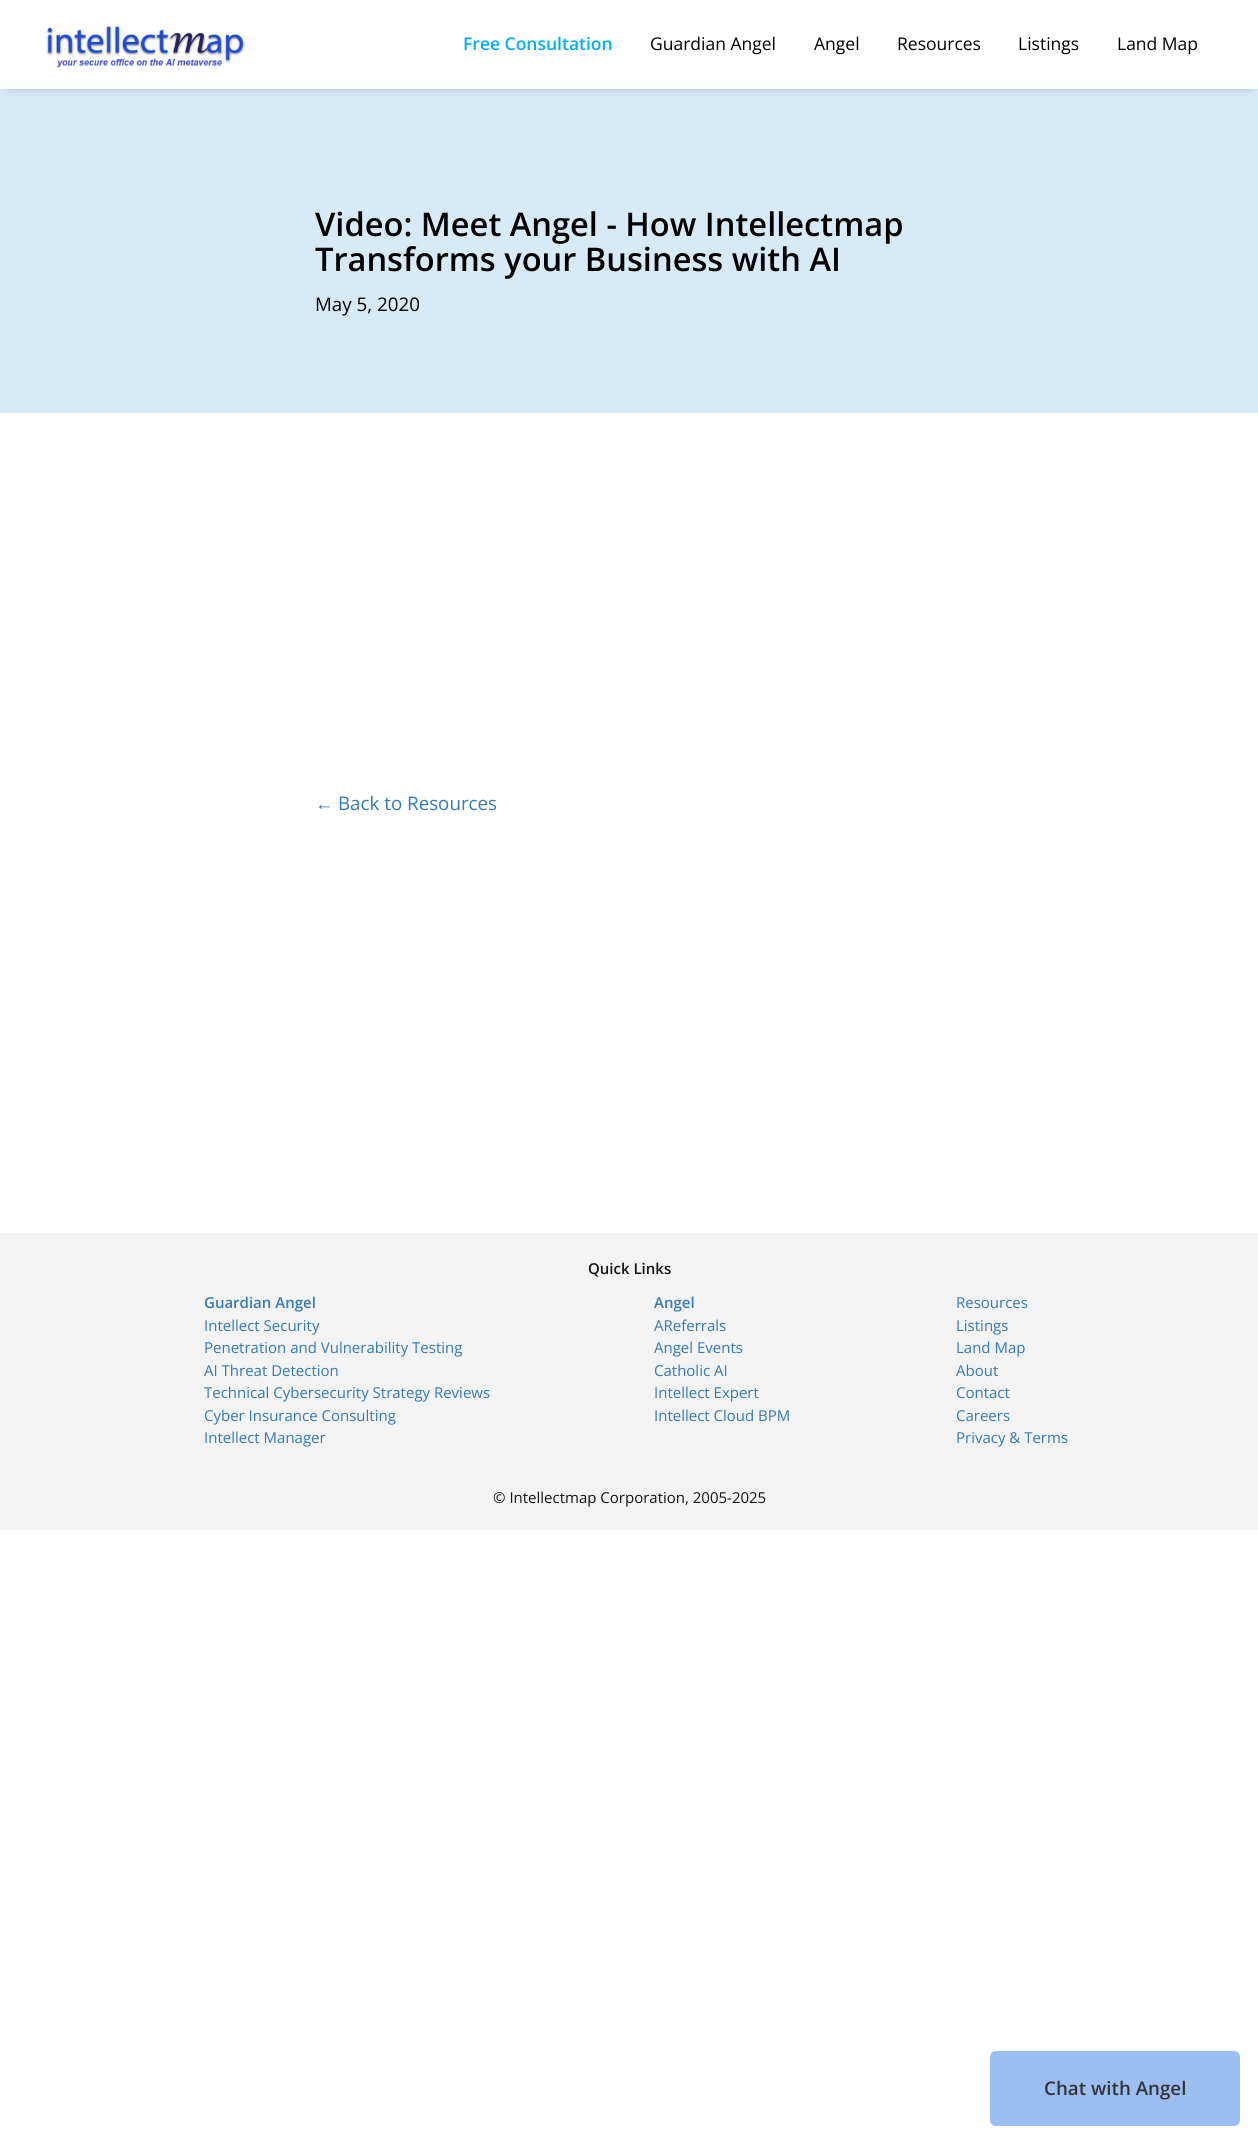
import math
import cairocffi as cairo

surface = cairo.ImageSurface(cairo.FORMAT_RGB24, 1258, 2144)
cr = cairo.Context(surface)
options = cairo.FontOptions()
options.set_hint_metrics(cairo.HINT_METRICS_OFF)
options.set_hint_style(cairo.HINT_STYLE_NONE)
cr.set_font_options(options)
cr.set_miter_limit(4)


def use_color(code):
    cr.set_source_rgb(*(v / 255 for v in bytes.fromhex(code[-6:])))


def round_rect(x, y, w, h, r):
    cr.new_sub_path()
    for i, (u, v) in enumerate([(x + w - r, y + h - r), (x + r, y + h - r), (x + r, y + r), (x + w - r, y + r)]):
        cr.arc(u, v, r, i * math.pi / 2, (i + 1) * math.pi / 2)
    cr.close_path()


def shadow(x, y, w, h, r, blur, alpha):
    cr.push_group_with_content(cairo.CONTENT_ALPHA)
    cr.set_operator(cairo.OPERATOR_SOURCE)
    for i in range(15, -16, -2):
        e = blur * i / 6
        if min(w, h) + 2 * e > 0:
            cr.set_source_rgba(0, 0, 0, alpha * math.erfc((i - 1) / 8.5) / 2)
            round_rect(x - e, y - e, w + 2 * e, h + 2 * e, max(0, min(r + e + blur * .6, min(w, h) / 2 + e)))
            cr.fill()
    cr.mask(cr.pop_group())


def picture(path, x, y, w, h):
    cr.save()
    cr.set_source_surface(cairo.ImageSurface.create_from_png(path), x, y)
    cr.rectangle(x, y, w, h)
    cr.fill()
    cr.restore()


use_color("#ffffff")
cr.paint()
use_color("#d6eaf8")
cr.rectangle(0, 75, 1258, 338)
cr.fill()
cr.save()
cr.set_fill_rule(cairo.FILL_RULE_EVEN_ODD)
cr.new_path()
cr.move_to(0, 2)
cr.line_to(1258, 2)
cr.line_to(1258, 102)
cr.line_to(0, 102)
cr.close_path()
cr.move_to(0, 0)
cr.line_to(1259, 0)
cr.line_to(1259, 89)
cr.line_to(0, 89)
cr.close_path()
cr.clip()
use_color("#000000")
shadow(8, 15, 1243, 74, 0, 4, 0.2)
cr.restore()
cr.set_source_rgba(1, 1, 1, 0.98)
cr.rectangle(0, 75, 1258, 14)
cr.fill()
picture("img1.png", 46, 26, 199, 42)
cr.select_font_face("Open Sans SemiBold")
cr.set_font_size(17.5)
use_color("#00b0f0")
cr.move_to(463, 50)
cr.show_text("Free Consultation")
cr.select_font_face("Open Sans")
use_color("#000000")
cr.move_to(650, 50)
cr.show_text("Guardian Angel")
cr.move_to(814, 50)
cr.show_text("Angel")
cr.move_to(897, 50)
cr.show_text("Resources")
cr.move_to(1018, 50)
cr.show_text("Listings")
cr.move_to(1117, 50)
cr.show_text("Land Map")
cr.select_font_face("Open Sans SemiBold")
cr.set_font_size(32.6)
cr.move_to(315, 236)
cr.show_text("Video: Meet Angel - How Intellectmap")
cr.move_to(315, 271)
cr.show_text("Transforms your Business with AI")
cr.select_font_face("Open Sans")
cr.set_font_size(18.75)
cr.move_to(315, 311)
cr.show_text("May 5, 2020")
cr.select_font_face("Liberation Sans")
use_color("#337ab7")
cr.move_to(315, 810)
cr.show_text("←")
cr.select_font_face("Open Sans")
cr.move_to(338, 810)
cr.show_text("Back to Resources")
use_color("#f3f3f3")
cr.rectangle(0, 1233, 1258, 297)
cr.fill()
cr.select_font_face("Open Sans SemiBold")
cr.set_font_size(15)
use_color("#131313")
cr.move_to(588, 1274)
cr.show_text("Quick Links")
use_color("#337ab7")
cr.move_to(204, 1308)
cr.show_text("Guardian Angel")
cr.select_font_face("Open Sans")
cr.move_to(204, 1331)
cr.show_text("Intellect Security")
cr.move_to(204, 1353)
cr.show_text("Penetration and Vulnerability Testing")
cr.move_to(204, 1376)
cr.show_text("AI Threat Detection")
cr.move_to(204, 1398)
cr.show_text("Technical Cybersecurity Strategy Reviews")
cr.move_to(204, 1421)
cr.show_text("Cyber Insurance Consulting")
cr.move_to(204, 1443)
cr.show_text("Intellect Manager")
cr.select_font_face("Open Sans SemiBold")
cr.move_to(654, 1308)
cr.show_text("Angel")
cr.select_font_face("Open Sans")
cr.move_to(654, 1331)
cr.show_text("AReferrals")
cr.move_to(654, 1353)
cr.show_text("Angel Events")
cr.move_to(654, 1376)
cr.show_text("Catholic AI")
cr.move_to(654, 1398)
cr.show_text("Intellect Expert")
cr.move_to(654, 1421)
cr.show_text("Intellect Cloud BPM")
cr.move_to(956, 1308)
cr.show_text("Resources")
cr.move_to(956, 1331)
cr.show_text("Listings")
cr.move_to(956, 1353)
cr.show_text("Land Map")
cr.move_to(956, 1376)
cr.show_text("About")
cr.move_to(956, 1398)
cr.show_text("Contact")
cr.move_to(956, 1421)
cr.show_text("Careers")
cr.move_to(956, 1443)
cr.show_text("Privacy & Terms")
use_color("#131313")
cr.move_to(493, 1503)
cr.show_text("© Intellectmap Corporation, 2005-2025")
use_color("#9cbff3")
round_rect(990, 2051, 250, 75, 6)
cr.fill()
cr.select_font_face("Open Sans SemiBold")
cr.set_font_size(18.75)
use_color("#333333")
cr.move_to(1044, 2095)
cr.show_text("Chat with Angel")
surface.write_to_png("result.png")
